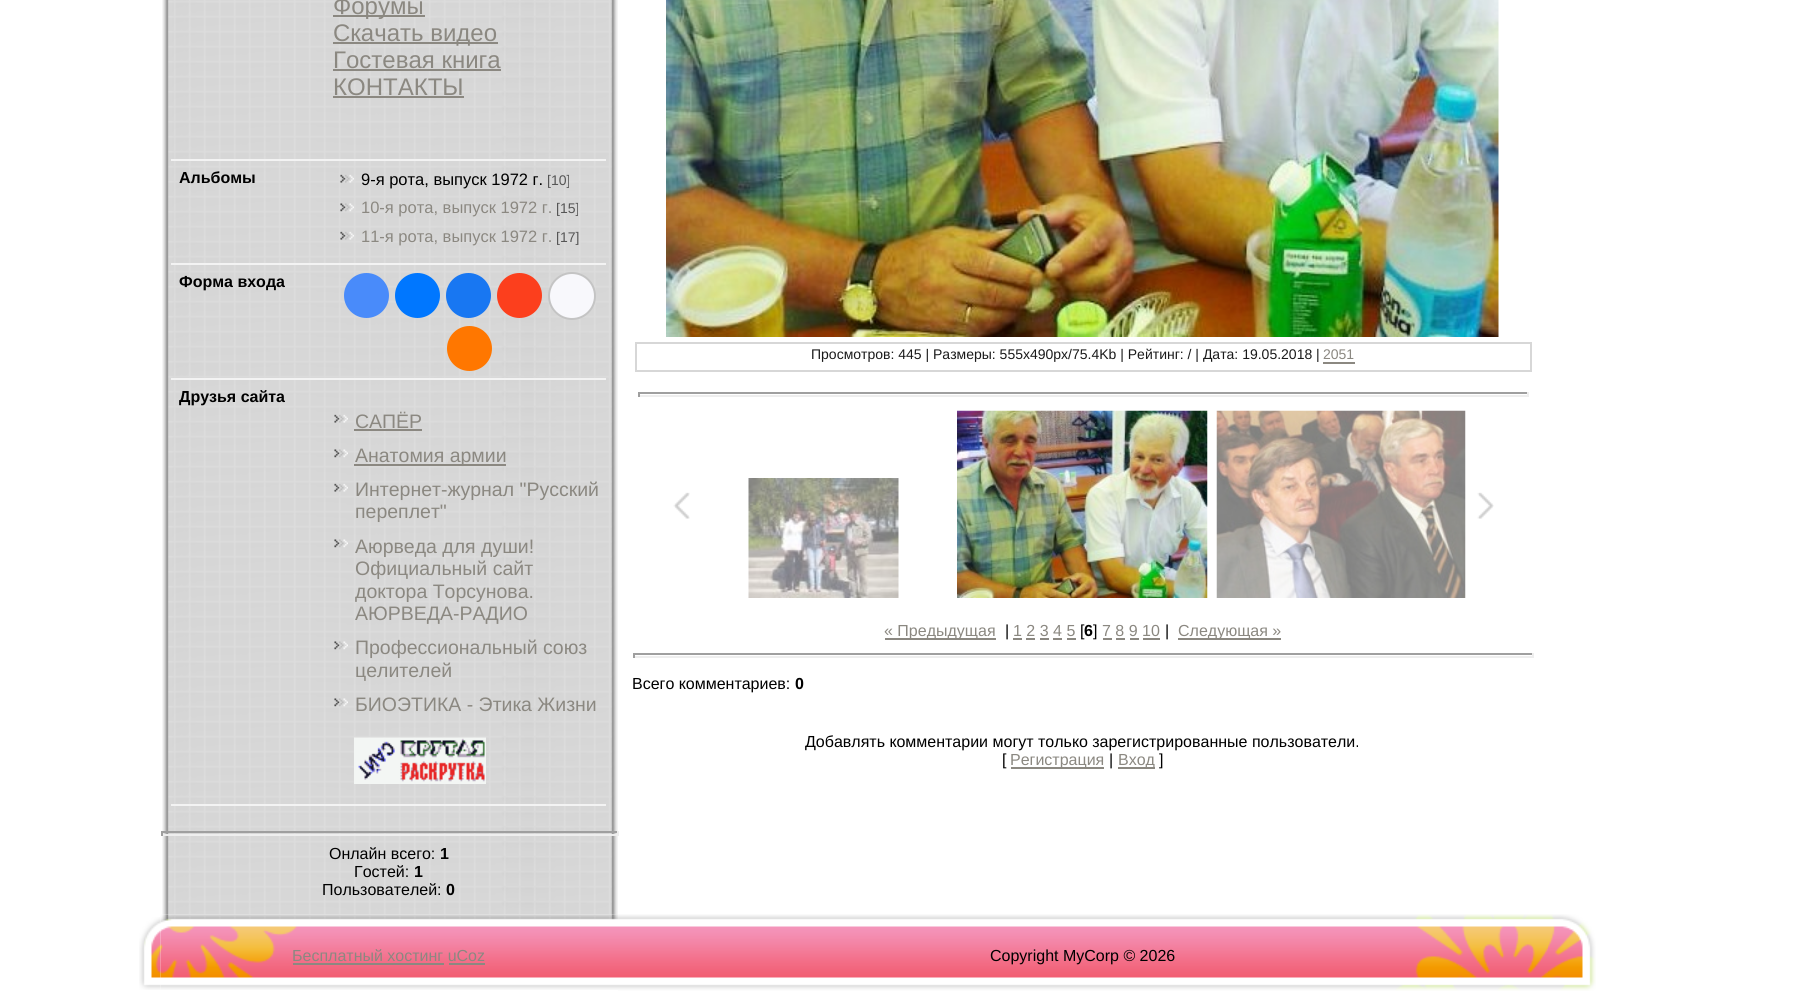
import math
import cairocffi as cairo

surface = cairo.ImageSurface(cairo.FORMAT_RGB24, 1819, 1002)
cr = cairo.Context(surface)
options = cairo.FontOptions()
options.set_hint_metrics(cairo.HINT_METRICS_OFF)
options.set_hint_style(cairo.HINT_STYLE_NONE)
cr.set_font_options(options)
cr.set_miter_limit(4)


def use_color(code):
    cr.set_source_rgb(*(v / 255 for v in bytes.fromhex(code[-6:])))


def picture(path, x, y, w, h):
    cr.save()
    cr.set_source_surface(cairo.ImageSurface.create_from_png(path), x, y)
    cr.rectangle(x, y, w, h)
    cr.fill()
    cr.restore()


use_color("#ffffff")
cr.paint()
picture("img1.png", 162, 0, 456, 915)
use_color("#f3f3f3")
cr.rectangle(171, 159, 435, 2)
cr.fill()
use_color("#8b8881")
cr.rectangle(333, 15, 92, 2)
cr.fill()
cr.select_font_face("Liberation Sans")
cr.set_font_size(24)
cr.move_to(333, 14)
cr.show_text("Форумы")
cr.rectangle(333, 42, 165, 2)
cr.fill()
cr.move_to(333, 41)
cr.show_text("Скачать видео")
cr.move_to(333, 68)
cr.show_text("Гостевая книга")
cr.rectangle(333, 69, 168, 2)
cr.fill()
cr.move_to(333, 95)
cr.show_text("КОНТАКТЫ")
cr.rectangle(333, 96, 131, 2)
cr.fill()
use_color("#f3f3f3")
cr.rectangle(171, 263, 435, 2)
cr.fill()
cr.select_font_face("Liberation Sans", cairo.FONT_SLANT_NORMAL, cairo.FONT_WEIGHT_BOLD)
cr.set_font_size(16)
use_color("#000000")
cr.move_to(179, 183)
cr.show_text("Альбомы")
picture("img2.png", 340, 174, 14, 9)
cr.select_font_face("Liberation Sans")
cr.set_font_size(16.5)
cr.move_to(361, 185)
cr.show_text("9-я рота, выпуск 1972 г.")
cr.set_font_size(14)
use_color("#555555")
cr.move_to(547, 185)
cr.show_text("[10]")
picture("img3.png", 340, 203, 14, 9)
cr.set_font_size(16.5)
use_color("#8b8881")
cr.move_to(361, 213)
cr.show_text("10-я рота, выпуск 1972 г.")
cr.set_font_size(14)
use_color("#555555")
cr.move_to(556, 213)
cr.show_text("[15]")
picture("img4.png", 340, 231, 14, 9)
cr.set_font_size(16.5)
use_color("#8b8881")
cr.move_to(361, 242)
cr.show_text("11-я рота, выпуск 1972 г.")
cr.set_font_size(14)
use_color("#555555")
cr.move_to(556, 242)
cr.show_text("[17]")
use_color("#f3f3f3")
cr.rectangle(171, 378, 435, 2)
cr.fill()
cr.select_font_face("Liberation Sans", cairo.FONT_SLANT_NORMAL, cairo.FONT_WEIGHT_BOLD)
cr.set_font_size(16)
use_color("#000000")
cr.move_to(179, 287)
cr.show_text("Форма входа")
use_color("#498bfa")
cr.new_path()
cr.arc(366.5, 295.5, 22.5, 0, 2 * math.pi)
cr.fill()
use_color("#0077ff")
cr.arc(417.5, 295.5, 22.5, 0, 2 * math.pi)
cr.fill()
use_color("#1877f2")
cr.arc(468.5, 295.5, 22.5, 0, 2 * math.pi)
cr.fill()
use_color("#fc3f1d")
cr.arc(519.5, 295.5, 22.5, 0, 2 * math.pi)
cr.fill()
use_color("#f8f8fc")
cr.arc(572, 296, 23, 0, 2 * math.pi)
cr.fill_preserve()
use_color("#c4c4c4")
cr.stroke()
use_color("#ff7700")
cr.arc(469.5, 348.5, 22.5, 0, 2 * math.pi)
cr.fill()
use_color("#f3f3f3")
cr.rectangle(171, 804, 435, 2)
cr.fill()
use_color("#000000")
cr.move_to(179, 402)
cr.show_text("Друзья сайта")
picture("img5.png", 334, 414, 14, 9)
cr.select_font_face("Liberation Sans")
cr.set_font_size(19.5)
use_color("#8b8881")
cr.move_to(355, 428)
cr.show_text("САПЁР")
cr.rectangle(354, 429, 68, 2)
cr.fill()
picture("img6.png", 334, 449, 14, 9)
cr.rectangle(354, 464, 152, 2)
cr.fill()
cr.move_to(355, 462)
cr.show_text("Анатомия армии")
picture("img7.png", 334, 483, 14, 9)
cr.move_to(355, 496)
cr.show_text("Интернет-журнал \"Русский")
cr.move_to(355, 518)
cr.show_text("переплет\"")
picture("img8.png", 334, 539, 14, 9)
cr.move_to(355, 553)
cr.show_text("Аюрведа для души!")
cr.move_to(355, 575)
cr.show_text("Официальный сайт")
cr.move_to(355, 598)
cr.show_text("доктора Торсунова.")
cr.move_to(355, 620)
cr.show_text("АЮРВЕДА-РАДИО")
picture("img9.png", 334, 641, 14, 9)
cr.move_to(355, 654)
cr.show_text("Профессиональный союз")
cr.move_to(355, 677)
cr.show_text("целителей")
picture("img10.png", 334, 698, 14, 9)
cr.move_to(355, 711)
cr.show_text("БИОЭТИКА - Этика Жизни")
picture("img11.png", 354, 737, 132, 47)
use_color("#9f9f9f")
cr.rectangle(161, 831, 457, 2)
cr.fill()
use_color("#eeeeee")
cr.rectangle(617, 831, 2, 5)
cr.fill()
cr.rectangle(161, 834, 457, 2)
cr.fill()
use_color("#9f9f9f")
cr.rectangle(161, 831, 2, 5)
cr.fill()
cr.set_font_size(16)
use_color("#000000")
cr.move_to(329, 859)
cr.show_text("Онлайн всего:")
cr.select_font_face("Liberation Sans", cairo.FONT_SLANT_NORMAL, cairo.FONT_WEIGHT_BOLD)
cr.move_to(440, 859)
cr.show_text("1")
cr.select_font_face("Liberation Sans")
cr.move_to(354, 877)
cr.show_text("Гостей:")
cr.select_font_face("Liberation Sans", cairo.FONT_SLANT_NORMAL, cairo.FONT_WEIGHT_BOLD)
cr.move_to(414, 877)
cr.show_text("1")
cr.select_font_face("Liberation Sans")
cr.move_to(322, 895)
cr.show_text("Пользователей:")
cr.select_font_face("Liberation Sans", cairo.FONT_SLANT_NORMAL, cairo.FONT_WEIGHT_BOLD)
cr.move_to(446, 895)
cr.show_text("0")
picture("img12.png", 666, 0, 833, 337)
cr.rectangle(636, 343, 895, 28)
use_color("#d7d7d7")
cr.stroke()
cr.select_font_face("Liberation Sans")
cr.set_font_size(14)
use_color("#1a1a1a")
cr.move_to(811, 359)
cr.show_text("Просмотров: 445 | Размеры: 555x490px/75.4Kb | Рейтинг: / | Дата: 19.05.2018 |")
use_color("#8b8881")
cr.move_to(1323, 359)
cr.show_text("2051")
cr.rectangle(1323, 362, 32, 2)
cr.fill()
use_color("#9f9f9f")
cr.rectangle(638, 392, 891, 2)
cr.fill()
use_color("#eeeeee")
cr.rectangle(1527, 392, 2, 5)
cr.fill()
cr.rectangle(638, 395, 891, 2)
cr.fill()
use_color("#9f9f9f")
cr.rectangle(638, 392, 2, 5)
cr.fill()
picture("img13.png", 673, 492, 17, 27)
picture("img14.png", 748, 478, 151, 120)
picture("img15.png", 957, 410, 251, 188)
picture("img16.png", 1216, 410, 250, 188)
picture("img17.png", 1477, 492, 17, 27)
use_color("#8b8881")
cr.rectangle(885, 638, 111, 2)
cr.fill()
cr.set_font_size(16)
cr.move_to(884, 636)
cr.show_text("« Предыдущая")
use_color("#000000")
cr.move_to(1005, 636)
cr.show_text("|")
use_color("#8b8881")
cr.move_to(1013, 636)
cr.show_text("1 2 3 4 5")
cr.rectangle(1013, 638, 9, 2)
cr.fill()
use_color("#000000")
cr.move_to(1080, 636)
cr.show_text("[")
cr.select_font_face("Liberation Sans", cairo.FONT_SLANT_NORMAL, cairo.FONT_WEIGHT_BOLD)
cr.move_to(1084, 636)
cr.show_text("6")
cr.select_font_face("Liberation Sans")
cr.move_to(1093, 636)
cr.show_text("]")
use_color("#8b8881")
cr.move_to(1102, 636)
cr.show_text("7 8 9 10")
cr.rectangle(1103, 638, 9, 2)
cr.fill()
use_color("#000000")
cr.move_to(1165, 636)
cr.show_text("|")
use_color("#8b8881")
cr.rectangle(1178, 638, 103, 2)
cr.fill()
cr.move_to(1178, 636)
cr.show_text("Следующая »")
cr.rectangle(1026, 638, 9, 2)
cr.fill()
cr.rectangle(1040, 638, 9, 2)
cr.fill()
cr.rectangle(1053, 638, 9, 2)
cr.fill()
cr.rectangle(1067, 638, 9, 2)
cr.fill()
cr.rectangle(1116, 638, 9, 2)
cr.fill()
cr.rectangle(1130, 638, 9, 2)
cr.fill()
cr.rectangle(1143, 638, 17, 2)
cr.fill()
use_color("#9f9f9f")
cr.rectangle(633, 653, 900, 2)
cr.fill()
use_color("#eeeeee")
cr.rectangle(1532, 653, 2, 5)
cr.fill()
cr.rectangle(633, 656, 900, 2)
cr.fill()
use_color("#9f9f9f")
cr.rectangle(633, 653, 2, 5)
cr.fill()
use_color("#000000")
cr.move_to(632, 689)
cr.show_text("Всего комментариев:")
cr.select_font_face("Liberation Sans", cairo.FONT_SLANT_NORMAL, cairo.FONT_WEIGHT_BOLD)
cr.move_to(795, 689)
cr.show_text("0")
cr.select_font_face("Liberation Sans")
cr.move_to(805, 747)
cr.show_text("Добавлять комментарии могут только зарегистрированные пользователи.")
cr.move_to(1002, 765)
cr.show_text("[")
use_color("#8b8881")
cr.rectangle(1011, 767, 93, 2)
cr.fill()
cr.move_to(1010, 765)
cr.show_text("Регистрация")
use_color("#000000")
cr.move_to(1109, 765)
cr.show_text("|")
use_color("#8b8881")
cr.rectangle(1118, 767, 37, 2)
cr.fill()
cr.move_to(1118, 765)
cr.show_text("Вход")
use_color("#000000")
cr.move_to(1159, 765)
cr.show_text("]")
picture("img20.png", 160, 914, 458, 76)
picture("img18.png", 139, 917, 22, 73)
picture("img19.png", 1548, 914, 48, 77)
use_color("#8b8881")
cr.move_to(292, 961)
cr.show_text("Бесплатный хостинг uCoz")
cr.rectangle(293, 963, 151, 2)
cr.fill()
cr.rectangle(449, 963, 36, 2)
cr.fill()
picture("img21.png", 618, 914, 930, 77)
use_color("#000000")
cr.move_to(990, 961)
cr.show_text("Copyright MyCorp © 2026")
surface.write_to_png("result.png")
